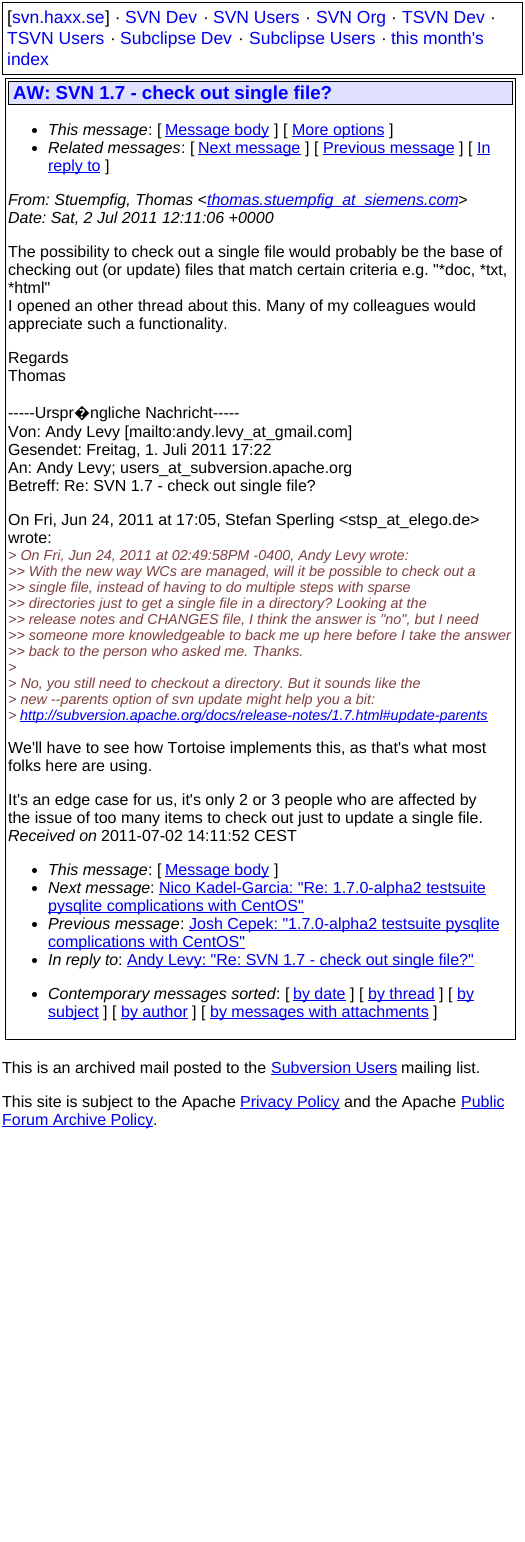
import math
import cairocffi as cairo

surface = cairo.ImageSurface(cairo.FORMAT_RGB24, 525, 1542)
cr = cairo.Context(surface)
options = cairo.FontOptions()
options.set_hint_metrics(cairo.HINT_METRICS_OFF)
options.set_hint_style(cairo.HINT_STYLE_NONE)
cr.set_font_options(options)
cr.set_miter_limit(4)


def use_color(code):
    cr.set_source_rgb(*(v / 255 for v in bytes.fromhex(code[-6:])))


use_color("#ffffff")
cr.paint()
cr.rectangle(2.5, 2.5, 520, 72)
use_color("#000000")
cr.set_line_width(1)
cr.stroke()
cr.select_font_face("Liberation Sans")
cr.set_font_size(17.5)
cr.move_to(7, 23)
cr.show_text("[")
use_color("#0000ee")
cr.move_to(12, 23)
cr.show_text("svn.haxx.se")
use_color("#000000")
cr.move_to(105, 23)
cr.show_text("] ·")
use_color("#0000ee")
cr.move_to(125, 23)
cr.show_text("SVN Dev")
use_color("#000000")
cr.move_to(203, 23)
cr.show_text("·")
use_color("#0000ee")
cr.move_to(213, 23)
cr.show_text("SVN Users")
use_color("#000000")
cr.move_to(305, 23)
cr.show_text("·")
use_color("#0000ee")
cr.move_to(316, 23)
cr.show_text("SVN Org")
use_color("#000000")
cr.move_to(391, 23)
cr.show_text("·")
use_color("#0000ee")
cr.move_to(402, 23)
cr.show_text("TSVN Dev")
use_color("#000000")
cr.move_to(490, 23)
cr.show_text("·")
use_color("#0000ee")
cr.move_to(7, 44)
cr.show_text("TSVN Users")
use_color("#000000")
cr.move_to(110, 44)
cr.show_text("·")
use_color("#0000ee")
cr.move_to(120, 44)
cr.show_text("Subclipse Dev")
use_color("#000000")
cr.move_to(238, 44)
cr.show_text("·")
use_color("#0000ee")
cr.move_to(249, 44)
cr.show_text("Subclipse Users")
use_color("#000000")
cr.move_to(381, 44)
cr.show_text("·")
use_color("#0000ee")
cr.move_to(391, 44)
cr.show_text("this month's")
cr.move_to(7, 65)
cr.show_text("index")
cr.rectangle(5.5, 78.5, 510, 961)
use_color("#000000")
cr.stroke()
use_color("#e0e0ff")
cr.rectangle(8.5, 81.5, 504, 23)
cr.fill_preserve()
use_color("#000000")
cr.stroke()
cr.select_font_face("Liberation Sans", cairo.FONT_SLANT_NORMAL, cairo.FONT_WEIGHT_BOLD)
cr.set_font_size(18.7)
use_color("#0000ff")
cr.move_to(13, 99)
cr.show_text("AW: SVN 1.7 - check out single file?")
use_color("#000000")
cr.new_path()
cr.arc(34.5, 130.5, 2.5, 0, 2 * math.pi)
cr.fill()
cr.select_font_face("Liberation Sans", cairo.FONT_SLANT_ITALIC)
cr.set_font_size(16)
cr.move_to(48, 135)
cr.show_text("This message")
cr.select_font_face("Liberation Sans")
cr.move_to(148, 135)
cr.show_text(": [")
use_color("#0000ee")
cr.rectangle(165, 136, 104, 1)
cr.fill()
cr.move_to(165, 135)
cr.show_text("Message body")
use_color("#000000")
cr.move_to(274, 135)
cr.show_text("] [")
use_color("#0000ee")
cr.rectangle(292, 136, 92, 1)
cr.fill()
cr.move_to(292, 135)
cr.show_text("More options")
use_color("#000000")
cr.move_to(389, 135)
cr.show_text("]")
cr.new_path()
cr.arc(34.5, 148.5, 2.5, 0, 2 * math.pi)
cr.fill()
cr.select_font_face("Liberation Sans", cairo.FONT_SLANT_ITALIC)
cr.move_to(48, 153)
cr.show_text("Related messages")
cr.select_font_face("Liberation Sans")
cr.move_to(181, 153)
cr.show_text(": [")
use_color("#0000ee")
cr.rectangle(198, 154, 103, 1)
cr.fill()
cr.move_to(198, 153)
cr.show_text("Next message")
use_color("#000000")
cr.move_to(305, 153)
cr.show_text("] [")
use_color("#0000ee")
cr.rectangle(323, 154, 131, 1)
cr.fill()
cr.move_to(323, 153)
cr.show_text("Previous message")
use_color("#000000")
cr.move_to(459, 153)
cr.show_text("] [")
use_color("#0000ee")
cr.move_to(477, 153)
cr.show_text("In")
cr.rectangle(477, 154, 13, 1)
cr.fill()
cr.rectangle(48, 172, 52, 1)
cr.fill()
cr.move_to(48, 171)
cr.show_text("reply to")
use_color("#000000")
cr.move_to(105, 171)
cr.show_text("]")
cr.select_font_face("Liberation Sans", cairo.FONT_SLANT_ITALIC)
cr.move_to(8, 205)
cr.show_text("From: Stuempfig, Thomas <")
use_color("#0000ee")
cr.rectangle(207, 206, 251, 1)
cr.fill()
cr.move_to(207, 205)
cr.show_text("thomas.stuempfig_at_siemens.com")
use_color("#000000")
cr.move_to(458, 205)
cr.show_text(">")
cr.move_to(8, 223)
cr.show_text("Date: Sat, 2 Jul 2011 12:11:06 +0000")
cr.select_font_face("Liberation Sans")
cr.move_to(8, 257)
cr.show_text("The possibility to check out a single file would probably be the base of")
cr.move_to(8, 275)
cr.show_text("checking out (or update) files that match certain criteria e.g. \"*doc, *txt,")
cr.move_to(8, 293)
cr.show_text("*html\"")
cr.move_to(8, 311)
cr.show_text("I opened an other thread about this. Many of my colleagues would")
cr.move_to(8, 329)
cr.show_text("appreciate such a functionality.")
cr.move_to(8, 363)
cr.show_text("Regards")
cr.move_to(8, 381)
cr.show_text("Thomas")
cr.move_to(8, 418)
cr.show_text("-----Urspr")
cr.select_font_face("Noto Sans")
cr.move_to(74, 418)
cr.show_text("�")
cr.select_font_face("Liberation Sans")
cr.move_to(90, 418)
cr.show_text("ngliche Nachricht-----")
cr.move_to(8, 437)
cr.show_text("Von: Andy Levy [mailto:andy.levy_at_gmail.com]")
cr.move_to(8, 455)
cr.show_text("Gesendet: Freitag, 1. Juli 2011 17:22")
cr.move_to(8, 473)
cr.show_text("An: Andy Levy; users_at_subversion.apache.org")
cr.move_to(8, 491)
cr.show_text("Betreff: Re: SVN 1.7 - check out single file?")
cr.move_to(8, 525)
cr.show_text("On Fri, Jun 24, 2011 at 17:05, Stefan Sperling <stsp_at_elego.de>")
cr.move_to(8, 543)
cr.show_text("wrote:")
cr.select_font_face("Liberation Sans", cairo.FONT_SLANT_ITALIC)
cr.set_font_size(14.4)
use_color("#804040")
cr.move_to(8, 560)
cr.show_text("> On Fri, Jun 24, 2011 at 02:49:58PM -0400, Andy Levy wrote:")
cr.move_to(8, 576)
cr.show_text(">> With the new way WCs are managed, will it be possible to check out a")
cr.move_to(8, 592)
cr.show_text(">> single file, instead of having to do multiple steps with sparse")
cr.move_to(8, 608)
cr.show_text(">> directories just to get a single file in a directory? Looking at the")
cr.move_to(8, 624)
cr.show_text(">> release notes and CHANGES file, I think the answer is \"no\", but I need")
cr.move_to(8, 640)
cr.show_text(">> someone more knowledgeable to back me up here before I take the answer")
cr.move_to(8, 656)
cr.show_text(">> back to the person who asked me. Thanks.")
cr.move_to(8, 672)
cr.show_text(">")
cr.move_to(8, 688)
cr.show_text("> No, you still need to checkout a directory. But it sounds like the")
cr.move_to(8, 704)
cr.show_text("> new --parents option of svn update might help you a bit:")
cr.move_to(8, 720)
cr.show_text(">")
use_color("#0000ee")
cr.rectangle(20, 721, 468, 1)
cr.fill()
cr.move_to(20, 720)
cr.show_text("http://subversion.apache.org/docs/release-notes/1.7.html#update-parents")
cr.select_font_face("Liberation Sans")
cr.set_font_size(16)
use_color("#000000")
cr.move_to(8, 753)
cr.show_text("We'll have to see how Tortoise implements this, as that's what most")
cr.move_to(8, 771)
cr.show_text("folks here are using.")
cr.move_to(8, 805)
cr.show_text("It's an edge case for us, it's only 2 or 3 people who are affected by")
cr.move_to(8, 823)
cr.show_text("the issue of too many items to check out just to update a single file.")
cr.select_font_face("Liberation Sans", cairo.FONT_SLANT_ITALIC)
cr.move_to(8, 841)
cr.show_text("Received on")
cr.select_font_face("Liberation Sans")
cr.move_to(101, 841)
cr.show_text("2011-07-02 14:11:52 CEST")
cr.new_path()
cr.arc(34.5, 870.5, 2.5, 0, 2 * math.pi)
cr.fill()
cr.select_font_face("Liberation Sans", cairo.FONT_SLANT_ITALIC)
cr.move_to(48, 875)
cr.show_text("This message")
cr.select_font_face("Liberation Sans")
cr.move_to(148, 875)
cr.show_text(": [")
use_color("#0000ee")
cr.rectangle(165, 876, 104, 1)
cr.fill()
cr.move_to(165, 875)
cr.show_text("Message body")
use_color("#000000")
cr.move_to(274, 875)
cr.show_text("]")
cr.new_path()
cr.arc(34.5, 888.5, 2.5, 0, 2 * math.pi)
cr.fill()
cr.select_font_face("Liberation Sans", cairo.FONT_SLANT_ITALIC)
cr.move_to(48, 893)
cr.show_text("Next message")
cr.select_font_face("Liberation Sans")
cr.move_to(150, 893)
cr.show_text(":")
use_color("#0000ee")
cr.rectangle(159, 894, 327, 1)
cr.fill()
cr.move_to(159, 893)
cr.show_text("Nico Kadel-Garcia: \"Re: 1.7.0-alpha2 testsuite")
cr.rectangle(48, 912, 256, 1)
cr.fill()
cr.move_to(48, 911)
cr.show_text("pysqlite complications with CentOS\"")
use_color("#000000")
cr.new_path()
cr.arc(34.5, 924.5, 2.5, 0, 2 * math.pi)
cr.fill()
cr.select_font_face("Liberation Sans", cairo.FONT_SLANT_ITALIC)
cr.move_to(48, 929)
cr.show_text("Previous message")
cr.select_font_face("Liberation Sans")
cr.move_to(180, 929)
cr.show_text(":")
use_color("#0000ee")
cr.rectangle(189, 930, 310, 1)
cr.fill()
cr.move_to(189, 929)
cr.show_text("Josh Cepek: \"1.7.0-alpha2 testsuite pysqlite")
cr.rectangle(48, 948, 197, 1)
cr.fill()
cr.move_to(48, 947)
cr.show_text("complications with CentOS\"")
use_color("#000000")
cr.new_path()
cr.arc(34.5, 960.5, 2.5, 0, 2 * math.pi)
cr.fill()
cr.select_font_face("Liberation Sans", cairo.FONT_SLANT_ITALIC)
cr.move_to(48, 965)
cr.show_text("In reply to")
cr.select_font_face("Liberation Sans")
cr.move_to(118, 965)
cr.show_text(":")
use_color("#0000ee")
cr.rectangle(127, 966, 347, 1)
cr.fill()
cr.move_to(127, 965)
cr.show_text("Andy Levy: \"Re: SVN 1.7 - check out single file?\"")
use_color("#000000")
cr.new_path()
cr.arc(34.5, 994.5, 2.5, 0, 2 * math.pi)
cr.fill()
cr.select_font_face("Liberation Sans", cairo.FONT_SLANT_ITALIC)
cr.move_to(48, 999)
cr.show_text("Contemporary messages sorted")
cr.select_font_face("Liberation Sans")
cr.move_to(276, 999)
cr.show_text(": [")
use_color("#0000ee")
cr.rectangle(293, 1000, 53, 1)
cr.fill()
cr.move_to(293, 999)
cr.show_text("by date")
use_color("#000000")
cr.move_to(350, 999)
cr.show_text("] [")
use_color("#0000ee")
cr.rectangle(368, 1000, 67, 1)
cr.fill()
cr.move_to(368, 999)
cr.show_text("by thread")
use_color("#000000")
cr.move_to(439, 999)
cr.show_text("] [")
use_color("#0000ee")
cr.rectangle(457, 1000, 17, 1)
cr.fill()
cr.move_to(457, 999)
cr.show_text("by")
cr.rectangle(48, 1018, 51, 1)
cr.fill()
cr.move_to(48, 1017)
cr.show_text("subject")
use_color("#000000")
cr.move_to(103, 1017)
cr.show_text("] [")
use_color("#0000ee")
cr.rectangle(121, 1018, 67, 1)
cr.fill()
cr.move_to(121, 1017)
cr.show_text("by author")
use_color("#000000")
cr.move_to(192, 1017)
cr.show_text("] [")
use_color("#0000ee")
cr.rectangle(210, 1018, 219, 1)
cr.fill()
cr.move_to(210, 1017)
cr.show_text("by messages with attachments")
use_color("#000000")
cr.move_to(433, 1017)
cr.show_text("]")
cr.move_to(2, 1073)
cr.show_text("This is an archived mail posted to the")
use_color("#0000ee")
cr.move_to(271, 1073)
cr.show_text("Subversion Users")
cr.rectangle(271, 1074, 126, 1)
cr.fill()
use_color("#000000")
cr.move_to(401, 1073)
cr.show_text("mailing list.")
cr.move_to(2, 1107)
cr.show_text("This site is subject to the Apache")
use_color("#0000ee")
cr.rectangle(240, 1108, 100, 1)
cr.fill()
cr.move_to(240, 1107)
cr.show_text("Privacy Policy")
use_color("#000000")
cr.move_to(344, 1107)
cr.show_text("and the Apache")
use_color("#0000ee")
cr.move_to(461, 1107)
cr.show_text("Public")
cr.rectangle(461, 1108, 43, 1)
cr.fill()
cr.rectangle(2, 1126, 151, 1)
cr.fill()
cr.move_to(2, 1125)
cr.show_text("Forum Archive Policy")
use_color("#000000")
cr.move_to(153, 1125)
cr.show_text(".")
surface.write_to_png("result.png")
